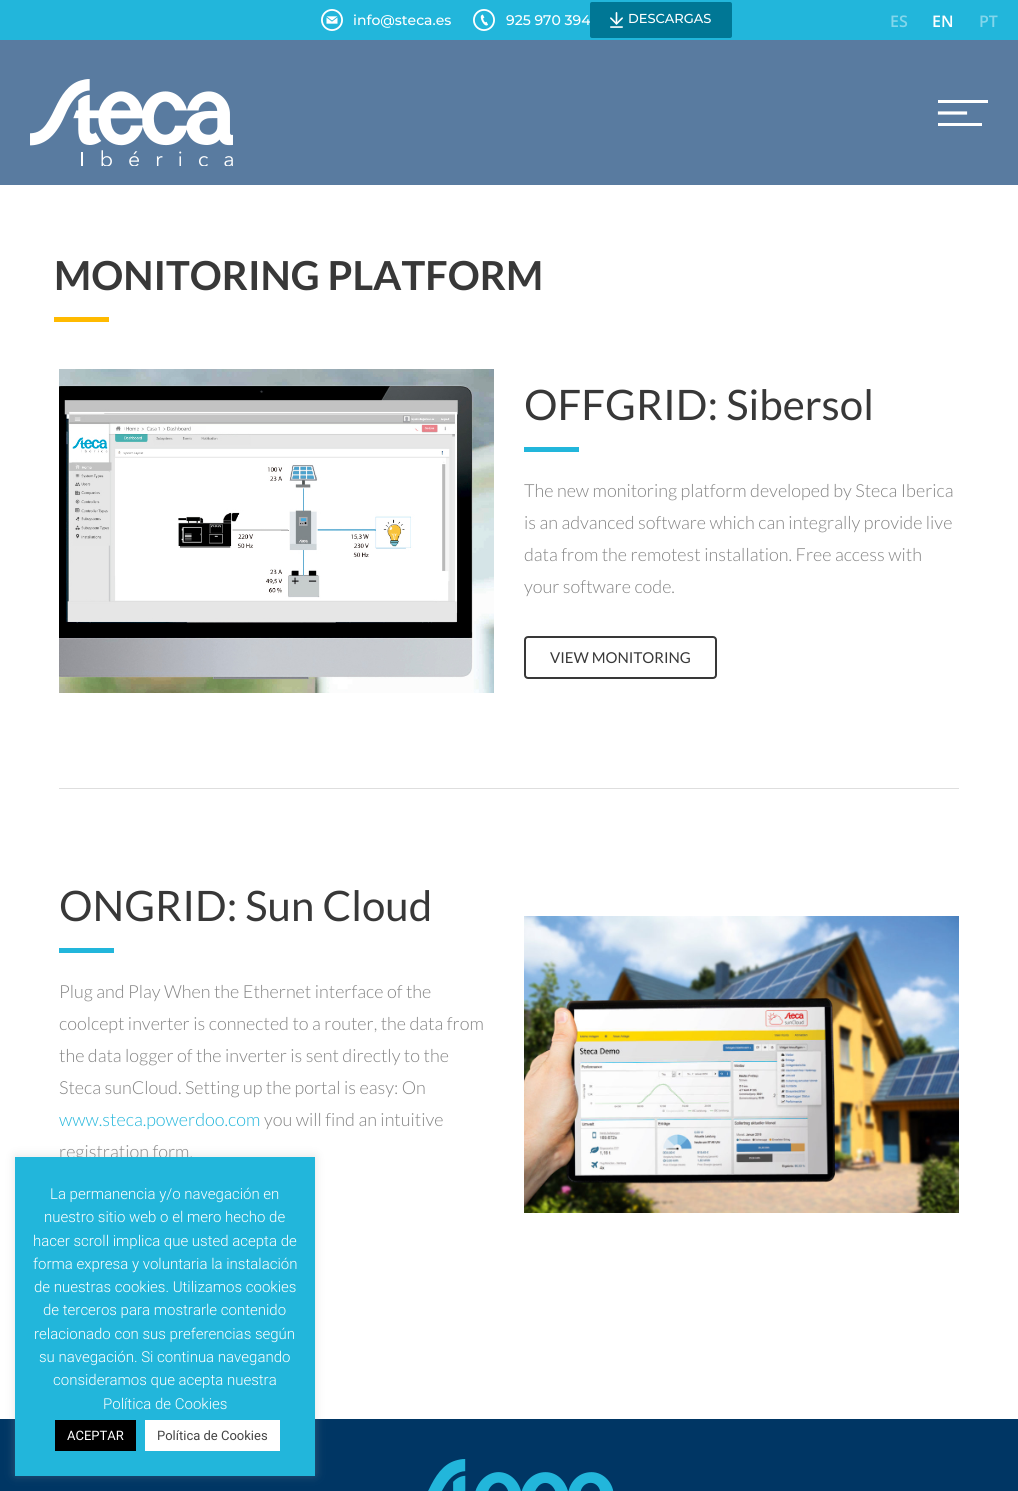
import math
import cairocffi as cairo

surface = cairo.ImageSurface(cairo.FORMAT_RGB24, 1018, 1491)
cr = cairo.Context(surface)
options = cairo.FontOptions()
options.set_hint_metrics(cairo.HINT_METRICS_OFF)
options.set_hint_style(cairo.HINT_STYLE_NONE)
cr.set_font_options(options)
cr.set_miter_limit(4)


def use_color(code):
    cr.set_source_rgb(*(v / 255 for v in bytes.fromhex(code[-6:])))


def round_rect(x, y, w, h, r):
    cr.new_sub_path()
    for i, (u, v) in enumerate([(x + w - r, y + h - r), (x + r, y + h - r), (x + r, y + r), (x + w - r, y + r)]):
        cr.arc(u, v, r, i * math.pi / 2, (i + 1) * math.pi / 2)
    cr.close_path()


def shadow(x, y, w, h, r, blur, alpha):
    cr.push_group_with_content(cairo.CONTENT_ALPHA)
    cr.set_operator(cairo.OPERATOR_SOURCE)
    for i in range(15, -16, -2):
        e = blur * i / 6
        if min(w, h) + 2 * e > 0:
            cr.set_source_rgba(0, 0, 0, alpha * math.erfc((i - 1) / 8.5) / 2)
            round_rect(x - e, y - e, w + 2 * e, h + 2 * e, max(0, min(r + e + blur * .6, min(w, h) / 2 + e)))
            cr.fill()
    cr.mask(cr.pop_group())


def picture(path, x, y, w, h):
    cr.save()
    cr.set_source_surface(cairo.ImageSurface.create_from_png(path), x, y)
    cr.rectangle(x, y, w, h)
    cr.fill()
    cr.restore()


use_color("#ffffff")
cr.paint()
use_color("#22b6db")
cr.rectangle(0, 0, 1018, 40)
cr.fill()
picture("img1.png", 321, 9, 22, 22)
cr.select_font_face("Montserrat Medium")
cr.set_font_size(14)
use_color("#ffffff")
cr.move_to(353, 25)
cr.show_text("info@steca.es")
picture("img2.png", 473, 9, 22, 22)
cr.move_to(506, 25)
cr.show_text("925 970 394")
use_color("#007795")
round_rect(590, 2, 142, 36, 2)
cr.fill()
picture("img3.png", 610, 12, 13, 16)
cr.set_font_size(13)
use_color("#ffffff")
cr.move_to(628, 23)
cr.show_text("DESCARGAS")
cr.select_font_face("Open Sans SemiBold")
cr.set_font_size(16)
use_color("#83d6eb")
cr.move_to(890, 27)
cr.show_text("ES")
use_color("#ffffff")
cr.move_to(932, 27)
cr.show_text("EN")
use_color("#83d6eb")
cr.move_to(979, 27)
cr.show_text("PT")
use_color("#597ba0")
cr.rectangle(0, 40, 1018, 145)
cr.fill()
picture("img4.png", 30, 79, 203, 87)
use_color("#ffffff")
cr.rectangle(938, 100, 50, 3)
cr.fill()
cr.new_path()
cr.move_to(939.5, 113)
cr.line_to(965.5, 113)
cr.set_line_width(3.2)
cr.set_line_cap(cairo.LINE_CAP_SQUARE)
cr.stroke()
cr.rectangle(938, 123, 44, 3)
cr.fill()
cr.select_font_face("Lato", cairo.FONT_SLANT_NORMAL, cairo.FONT_WEIGHT_BOLD)
cr.set_font_size(40)
use_color("#383838")
cr.move_to(54, 290)
cr.show_text("MONITORING PLATFORM")
use_color("#ffba00")
cr.rectangle(54, 317, 55, 5)
cr.fill()
picture("img5.png", 59, 369, 435, 324)
cr.select_font_face("Lato")
cr.set_font_size(42)
use_color("#383838")
cr.move_to(524, 420)
cr.show_text("OFFGRID: Sibersol")
use_color("#22b6db")
cr.rectangle(524, 447, 55, 5)
cr.fill()
cr.select_font_face("Lato Light")
cr.set_font_size(18)
use_color("#838383")
cr.move_to(524, 497)
cr.show_text("The new monitoring platform developed by Steca Iberica")
cr.move_to(524, 529)
cr.show_text("is an advanced software which can integrally provide live")
cr.move_to(524, 561)
cr.show_text("data from the remotest installation. Free access with")
cr.move_to(524, 593)
cr.show_text("your software code.")
round_rect(525, 637, 191, 41, 3)
use_color("#383838")
cr.set_line_width(2)
cr.set_line_cap(cairo.LINE_CAP_BUTT)
cr.stroke()
cr.select_font_face("Lato")
cr.set_font_size(15)
cr.move_to(550, 663)
cr.show_text("VIEW MONITORING")
use_color("#dedede")
cr.rectangle(59, 788, 900, 1)
cr.fill()
cr.set_font_size(42)
use_color("#383838")
cr.move_to(59, 921)
cr.show_text("ONGRID: Sun Cloud")
use_color("#22b6db")
cr.rectangle(59, 948, 55, 5)
cr.fill()
cr.select_font_face("Lato Light")
cr.set_font_size(18)
use_color("#838383")
cr.move_to(59, 998)
cr.show_text("Plug and Play When the Ethernet interface of the")
cr.move_to(59, 1030)
cr.show_text("coolcept inverter is connected to a router, the data from")
cr.move_to(59, 1062)
cr.show_text("the data logger of the inverter is sent directly to the")
cr.move_to(59, 1094)
cr.show_text("Steca sunCloud. Setting up the portal is easy: On")
use_color("#22b6db")
cr.move_to(59, 1126)
cr.show_text("www.steca.powerdoo.com")
use_color("#838383")
cr.move_to(264, 1126)
cr.show_text("you will find an intuitive")
cr.move_to(59, 1158)
cr.show_text("registration form.")
picture("img6.png", 524, 916, 435, 297)
use_color("#003664")
cr.rectangle(0, 1419, 1018, 72)
cr.fill()
use_color("#acabab")
shadow(15, 1156, 300, 319, 0, 5, 0.3)
use_color("#22b6db")
cr.rectangle(15, 1157, 300, 319)
cr.fill()
cr.select_font_face("Roboto Light")
cr.set_font_size(15)
use_color("#ffffff")
cr.move_to(50, 1199)
cr.show_text("La permanencia y/o navegación en")
cr.move_to(44, 1222)
cr.show_text("nuestro sitio web o el mero hecho de")
cr.move_to(33, 1246)
cr.show_text("hacer scroll implica que usted acepta de")
cr.move_to(33, 1269)
cr.show_text("forma expresa y voluntaria la instalación")
cr.move_to(34, 1292)
cr.show_text("de nuestras cookies. Utilizamos cookies")
cr.move_to(43, 1315)
cr.show_text("de terceros para mostrarle contenido")
cr.move_to(34, 1339)
cr.show_text("relacionado con sus preferencias según")
cr.move_to(39, 1362)
cr.show_text("su navegación. Si continua navegando")
cr.move_to(53, 1385)
cr.show_text("consideramos que acepta nuestra")
cr.move_to(103, 1409)
cr.show_text("Política de Cookies")
use_color("#000000")
cr.rectangle(55, 1420, 81, 31)
cr.fill()
cr.select_font_face("Roboto")
cr.set_font_size(13)
use_color("#ffffff")
cr.move_to(67, 1440)
cr.show_text("ACEPTAR")
cr.rectangle(145, 1420, 135, 31)
cr.fill()
use_color("#444444")
cr.move_to(157, 1440)
cr.show_text("Política de Cookies")
picture("img7.png", 428, 1459, 186, 32)
surface.write_to_png("result.png")
